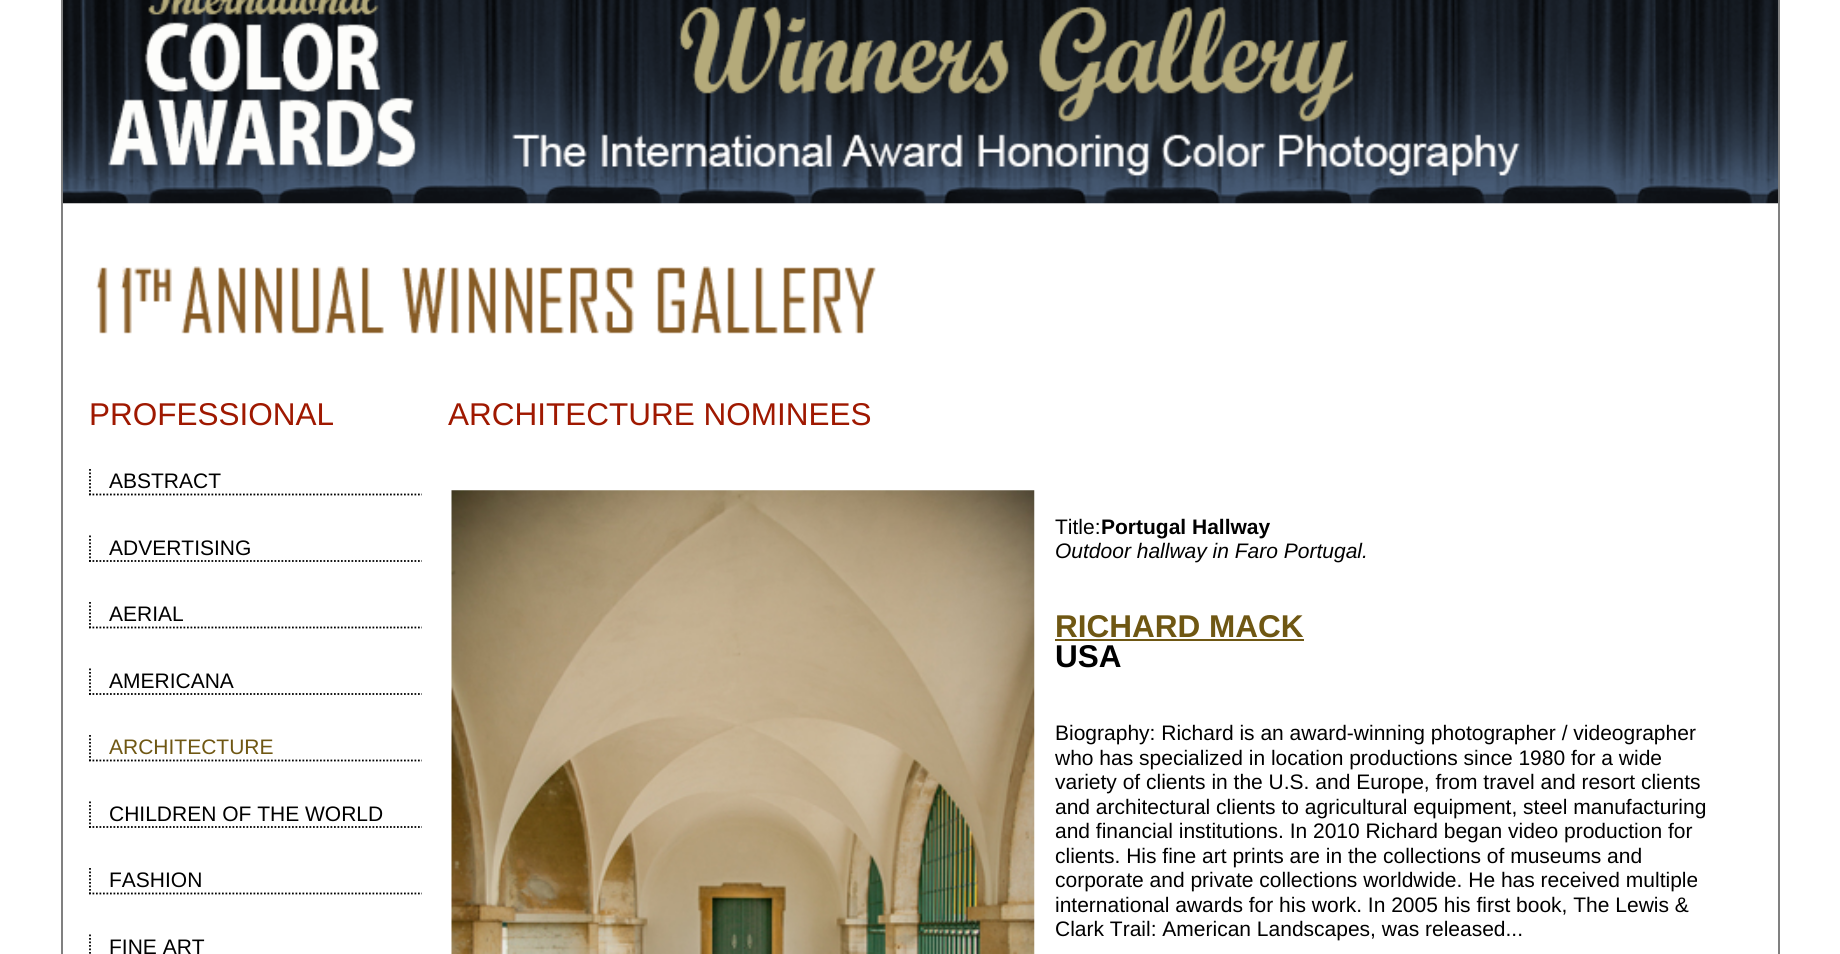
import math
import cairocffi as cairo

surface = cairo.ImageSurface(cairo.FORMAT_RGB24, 1840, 954)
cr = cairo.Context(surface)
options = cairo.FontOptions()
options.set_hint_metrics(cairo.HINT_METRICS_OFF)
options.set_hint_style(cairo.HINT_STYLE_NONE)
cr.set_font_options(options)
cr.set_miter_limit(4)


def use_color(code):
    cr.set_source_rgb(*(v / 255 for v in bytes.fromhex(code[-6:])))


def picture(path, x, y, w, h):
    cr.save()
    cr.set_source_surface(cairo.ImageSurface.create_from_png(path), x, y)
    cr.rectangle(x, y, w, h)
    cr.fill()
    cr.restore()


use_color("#ffffff")
cr.paint()
use_color("#808080")
cr.rectangle(1778, 0, 2, 954)
cr.fill()
cr.rectangle(61, 0, 2, 954)
cr.fill()
picture("img1.png", 63, 0, 1715, 204)
picture("img2.png", 96, 266, 780, 68)
cr.select_font_face("Liberation Sans")
cr.set_font_size(31.5)
use_color("#9f1800")
cr.move_to(89, 425)
cr.show_text("PROFESSIONAL")
cr.save()
cr.rectangle(89, 371, 333, 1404)
cr.clip()
cr.new_path()
cr.move_to(89, 494.5)
cr.line_to(423.5, 494.5)
use_color("#000000")
cr.set_line_width(1.8)
cr.set_dash([1.75, 1.75])
cr.stroke()
cr.restore()
cr.new_path()
cr.move_to(90, 469)
cr.line_to(90, 495)
use_color("#000000")
cr.set_line_width(1.8)
cr.set_dash([1.75, 1.75])
cr.stroke()
cr.set_font_size(21)
cr.move_to(109, 488)
cr.show_text("ABSTRACT")
cr.save()
cr.rectangle(89, 371, 333, 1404)
cr.clip()
cr.new_path()
cr.move_to(89, 561)
cr.line_to(423.5, 561)
cr.stroke()
cr.restore()
cr.new_path()
cr.move_to(90, 535.5)
cr.line_to(90, 562)
cr.stroke()
cr.move_to(109, 555)
cr.show_text("ADVERTISING")
cr.save()
cr.rectangle(89, 371, 333, 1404)
cr.clip()
cr.new_path()
cr.move_to(89, 627.5)
cr.line_to(423.5, 627.5)
cr.stroke()
cr.restore()
cr.new_path()
cr.move_to(90, 602)
cr.line_to(90, 628)
cr.stroke()
cr.move_to(109, 621)
cr.show_text("AERIAL")
cr.save()
cr.rectangle(89, 371, 333, 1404)
cr.clip()
cr.new_path()
cr.move_to(89, 694)
cr.line_to(423.5, 694)
cr.stroke()
cr.restore()
cr.new_path()
cr.move_to(90, 668.5)
cr.line_to(90, 695)
cr.stroke()
cr.move_to(109, 688)
cr.show_text("AMERICANA")
cr.save()
cr.rectangle(89, 371, 333, 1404)
cr.clip()
cr.new_path()
cr.move_to(89, 760.5)
cr.line_to(423.5, 760.5)
cr.stroke()
cr.restore()
cr.new_path()
cr.move_to(90, 735)
cr.line_to(90, 761)
cr.stroke()
use_color("#6f5713")
cr.move_to(109, 754)
cr.show_text("ARCHITECTURE")
cr.save()
cr.rectangle(89, 371, 333, 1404)
cr.clip()
cr.new_path()
cr.move_to(89, 827)
cr.line_to(423.5, 827)
use_color("#000000")
cr.stroke()
cr.restore()
cr.new_path()
cr.move_to(90, 801.5)
cr.line_to(90, 828)
use_color("#000000")
cr.stroke()
cr.move_to(109, 821)
cr.show_text("CHILDREN OF THE WORLD")
cr.save()
cr.rectangle(89, 371, 333, 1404)
cr.clip()
cr.new_path()
cr.move_to(89, 893.5)
cr.line_to(423.5, 893.5)
cr.stroke()
cr.restore()
cr.new_path()
cr.move_to(90, 868)
cr.line_to(90, 894)
cr.stroke()
cr.move_to(109, 887)
cr.show_text("FASHION")
cr.new_path()
cr.move_to(90, 934.5)
cr.line_to(90, 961)
cr.stroke()
cr.move_to(109, 954)
cr.show_text("FINE ART")
cr.set_font_size(31.5)
use_color("#9f1800")
cr.move_to(448, 425)
cr.show_text("ARCHITECTURE NOMINEES")
picture("img3.png", 451, 490, 584, 464)
cr.set_font_size(21)
use_color("#000000")
cr.move_to(1055, 534)
cr.show_text("Title:")
cr.select_font_face("Liberation Sans", cairo.FONT_SLANT_NORMAL, cairo.FONT_WEIGHT_BOLD)
cr.move_to(1101, 534)
cr.show_text("Portugal Hallway")
cr.select_font_face("Liberation Sans", cairo.FONT_SLANT_ITALIC)
cr.move_to(1055, 558)
cr.show_text("Outdoor hallway in Faro Portugal.")
cr.select_font_face("Liberation Sans", cairo.FONT_SLANT_NORMAL, cairo.FONT_WEIGHT_BOLD)
cr.set_font_size(31.5)
use_color("#6f5713")
cr.move_to(1055, 637)
cr.show_text("RICHARD MACK")
cr.rectangle(1055, 639, 249, 2)
cr.fill()
use_color("#000000")
cr.move_to(1055, 667)
cr.show_text("USA")
cr.select_font_face("Liberation Sans")
cr.set_font_size(21)
cr.move_to(1055, 740)
cr.show_text("Biography: Richard is an award-winning photographer / videographer")
cr.move_to(1055, 765)
cr.show_text("who has specialized in location productions since 1980 for a wide")
cr.move_to(1055, 789)
cr.show_text("variety of clients in the U.S. and Europe, from travel and resort clients")
cr.move_to(1055, 814)
cr.show_text("and architectural clients to agricultural equipment, steel manufacturing")
cr.move_to(1055, 838)
cr.show_text("and financial institutions. In 2010 Richard began video production for")
cr.move_to(1055, 863)
cr.show_text("clients. His fine art prints are in the collections of museums and")
cr.move_to(1055, 887)
cr.show_text("corporate and private collections worldwide. He has received multiple")
cr.move_to(1055, 912)
cr.show_text("international awards for his work. In 2005 his first book, The Lewis &")
cr.move_to(1055, 936)
cr.show_text("Clark Trail: American Landscapes, was released...")
surface.write_to_png("result.png")
